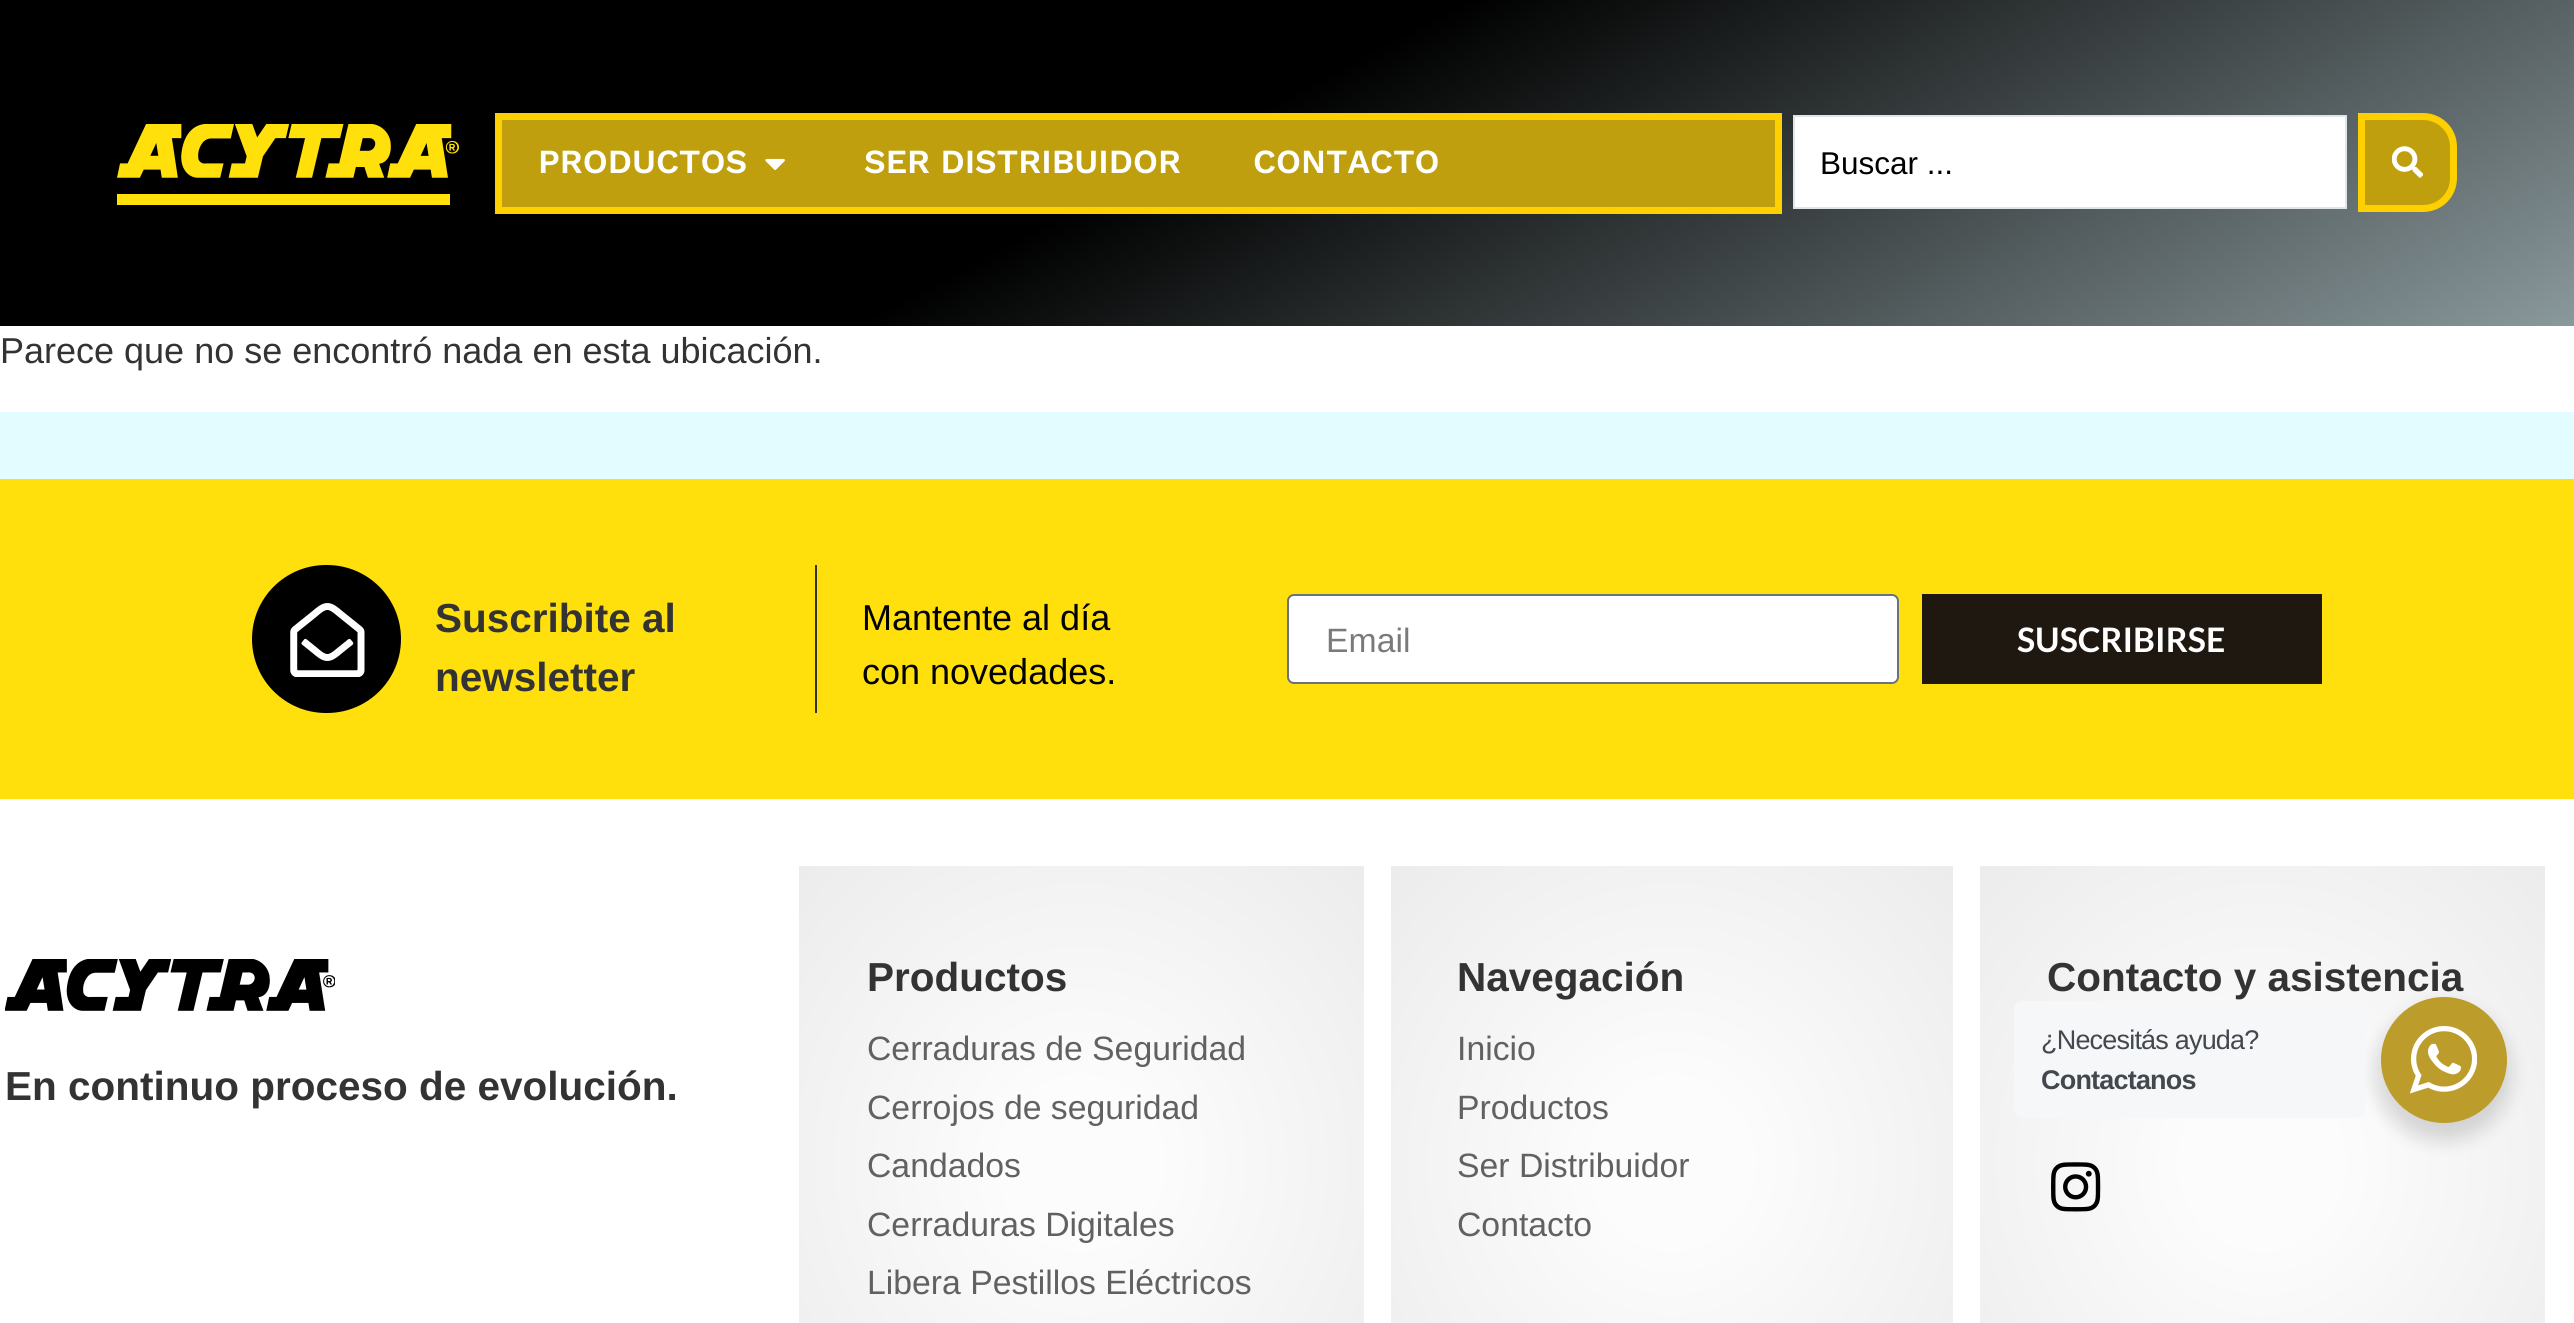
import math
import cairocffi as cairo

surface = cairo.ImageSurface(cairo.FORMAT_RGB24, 2574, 1323)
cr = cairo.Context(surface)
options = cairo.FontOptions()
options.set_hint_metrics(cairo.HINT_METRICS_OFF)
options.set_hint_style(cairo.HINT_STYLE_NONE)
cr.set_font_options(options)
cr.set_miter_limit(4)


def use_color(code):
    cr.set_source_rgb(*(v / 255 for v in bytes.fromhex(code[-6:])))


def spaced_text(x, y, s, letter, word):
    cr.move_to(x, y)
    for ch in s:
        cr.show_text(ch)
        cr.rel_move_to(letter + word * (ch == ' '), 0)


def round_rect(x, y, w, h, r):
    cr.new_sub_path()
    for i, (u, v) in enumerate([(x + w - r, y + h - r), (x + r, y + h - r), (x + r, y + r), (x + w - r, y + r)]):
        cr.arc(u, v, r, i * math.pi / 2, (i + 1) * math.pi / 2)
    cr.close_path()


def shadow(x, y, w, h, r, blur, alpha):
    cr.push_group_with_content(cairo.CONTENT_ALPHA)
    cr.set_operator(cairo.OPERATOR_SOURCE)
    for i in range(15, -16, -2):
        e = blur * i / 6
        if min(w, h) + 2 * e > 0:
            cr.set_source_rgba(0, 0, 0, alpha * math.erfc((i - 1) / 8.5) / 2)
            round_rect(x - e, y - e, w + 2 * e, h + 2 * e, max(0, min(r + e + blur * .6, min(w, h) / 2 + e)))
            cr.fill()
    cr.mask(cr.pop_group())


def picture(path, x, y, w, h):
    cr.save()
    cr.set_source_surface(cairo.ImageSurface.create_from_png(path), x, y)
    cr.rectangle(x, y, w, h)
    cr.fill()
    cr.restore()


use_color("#ffffff")
cr.paint()
gradient = cairo.LinearGradient(936, -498, 1638, 824)
gradient.add_color_stop_rgba(0.46, 0, 0, 0, 1)
gradient.add_color_stop_rgba(1, 0.541, 0.6, 0.612, 1)
cr.set_source(gradient)
cr.rectangle(0, 0, 2574, 326)
cr.fill()
use_color("#ffe00b")
cr.rectangle(117, 194, 333, 11)
cr.fill()
picture("img1.png", 117, 124, 342, 54)
use_color("#bf9f0e")
cr.rectangle(498.5, 116.5, 1280, 94)
cr.fill_preserve()
use_color("#fed000")
cr.set_line_width(7)
cr.stroke()
cr.select_font_face("Work Sans SemiBold")
cr.set_font_size(33.75)
use_color("#ffffff")
cr.move_to(538, 173)
cr.show_text("PRODUCTOS")
picture("img2.png", 765, 158, 20, 12)
cr.move_to(864, 173)
cr.show_text("SER DISTRIBUIDOR")
cr.move_to(1253, 173)
cr.show_text("CONTACTO")
cr.rectangle(1794, 116, 552, 92)
cr.fill_preserve()
use_color("#e1e5eb")
cr.set_line_width(2)
cr.stroke()
cr.select_font_face("Liberation Sans")
cr.set_font_size(31.5)
use_color("#000000")
cr.move_to(1820, 174)
cr.show_text("Buscar ...")
use_color("#bf9f0e")
cr.new_path()
cr.move_to(2361.5, 116.5)
cr.line_to(2423, 116.5)
cr.curve_to(2440, 116.5, 2453.5, 130, 2453.5, 147)
cr.line_to(2453.5, 178)
cr.curve_to(2453.5, 195, 2440, 208.5, 2423, 208.5)
cr.line_to(2361.5, 208.5)
cr.close_path()
cr.fill_preserve()
use_color("#fed000")
cr.set_line_width(7)
cr.stroke()
picture("img3.png", 2392, 146, 31, 32)
cr.set_font_size(36)
use_color("#333333")
cr.move_to(0, 363)
cr.show_text("Parece que no se encontró nada en esta ubicación.")
use_color("#e3fcff")
cr.rectangle(0, 412, 2574, 67)
cr.fill()
use_color("#ffe00c")
cr.rectangle(0, 479, 2574, 320)
cr.fill()
use_color("#333333")
cr.rectangle(815, 565, 2, 148)
cr.fill()
use_color("#000000")
round_rect(252, 565, 149, 148, 74)
cr.fill()
picture("img4.png", 290, 603, 75, 74)
cr.select_font_face("Liberation Sans", cairo.FONT_SLANT_NORMAL, cairo.FONT_WEIGHT_BOLD)
cr.set_font_size(40.5)
use_color("#333333")
cr.move_to(435, 632)
cr.show_text("Suscribite al")
cr.move_to(435, 691)
cr.show_text("newsletter")
cr.select_font_face("Liberation Sans")
cr.set_font_size(36)
use_color("#000000")
cr.move_to(862, 630)
cr.show_text("Mantente al día")
cr.move_to(862, 684)
cr.show_text("con novedades.")
use_color("#ffffff")
round_rect(1288, 595, 610, 88, 6)
cr.fill_preserve()
use_color("#69727d")
cr.set_line_width(2)
cr.stroke()
cr.set_font_size(33.75)
use_color("#797a7c")
cr.move_to(1326, 652)
cr.show_text("Email")
use_color("#1e1810")
cr.rectangle(1922, 594, 400, 90)
cr.fill()
cr.select_font_face("Lato", cairo.FONT_SLANT_NORMAL, cairo.FONT_WEIGHT_BOLD)
use_color("#ffffff")
cr.move_to(2017, 652)
cr.show_text("SUSCRIBIRSE")
gradient = cairo.RadialGradient(0, 0, 0, 0, 0, 1)
gradient.set_matrix(cairo.Matrix(1 / 399, 0, 0, 1 / 420, -1 * 1081 / 399, -1 * 1163 / 420))
gradient.add_color_stop_rgba(0.19, 0.988, 0.988, 0.988, 1)
gradient.add_color_stop_rgba(1, 0.925, 0.925, 0.925, 1)
cr.set_source(gradient)
cr.rectangle(799, 866, 565, 457)
cr.fill()
cr.select_font_face("Liberation Sans", cairo.FONT_SLANT_NORMAL, cairo.FONT_WEIGHT_BOLD)
cr.set_font_size(40.5)
use_color("#333333")
cr.move_to(867, 991)
cr.show_text("Productos")
cr.select_font_face("Liberation Sans")
cr.set_font_size(33.75)
use_color("#616161")
cr.move_to(867, 1060)
cr.show_text("Cerraduras de Seguridad")
cr.move_to(867, 1119)
cr.show_text("Cerrojos de seguridad")
cr.move_to(867, 1177)
cr.show_text("Candados")
cr.move_to(867, 1236)
cr.show_text("Cerraduras Digitales")
cr.move_to(867, 1294)
cr.show_text("Libera Pestillos Eléctricos")
gradient = cairo.RadialGradient(0, 0, 0, 0, 0, 1)
gradient.set_matrix(cairo.Matrix(1 / 398, 0, 0, 1 / 420, -1 * 1672 / 398, -1 * 1163 / 420))
gradient.add_color_stop_rgba(0.19, 0.988, 0.988, 0.988, 1)
gradient.add_color_stop_rgba(1, 0.925, 0.925, 0.925, 1)
cr.set_source(gradient)
cr.rectangle(1391, 866, 562, 457)
cr.fill()
cr.select_font_face("Liberation Sans", cairo.FONT_SLANT_NORMAL, cairo.FONT_WEIGHT_BOLD)
cr.set_font_size(40.5)
use_color("#333333")
cr.move_to(1457, 991)
cr.show_text("Navegación")
cr.select_font_face("Liberation Sans")
cr.set_font_size(33.75)
use_color("#616161")
cr.move_to(1457, 1060)
cr.show_text("Inicio")
cr.move_to(1457, 1119)
cr.show_text("Productos")
cr.move_to(1457, 1177)
cr.show_text("Ser Distribuidor")
cr.move_to(1457, 1236)
cr.show_text("Contacto")
gradient = cairo.RadialGradient(0, 0, 0, 0, 0, 1)
gradient.set_matrix(cairo.Matrix(1 / 399, 0, 0, 1 / 420, -1 * 2262 / 399, -1 * 1163 / 420))
gradient.add_color_stop_rgba(0.19, 0.988, 0.988, 0.988, 1)
gradient.add_color_stop_rgba(1, 0.925, 0.925, 0.925, 1)
cr.set_source(gradient)
cr.rectangle(1980, 866, 565, 457)
cr.fill()
cr.select_font_face("Liberation Sans", cairo.FONT_SLANT_NORMAL, cairo.FONT_WEIGHT_BOLD)
cr.set_font_size(40.5)
use_color("#333333")
cr.move_to(2047, 991)
cr.show_text("Contacto y asistencia")
picture("img5.png", 2051, 1162, 50, 50)
picture("img6.png", 5, 959, 330, 52)
cr.move_to(5, 1100)
cr.show_text("En continuo proceso de evolución.")
use_color("#000000")
shadow(2376, 1006, 135, 135, 67.5, 9, 0.14)
use_color("#f5f7f9")
round_rect(2014, 1001, 351, 117, 9)
cr.fill()
cr.select_font_face("Liberation Sans")
cr.set_font_size(27)
use_color("#43474e")
spaced_text(2041, 1049, "¿Necesitás ayuda?", -0.8, 0)
cr.select_font_face("Liberation Sans", cairo.FONT_SLANT_NORMAL, cairo.FONT_WEIGHT_BOLD)
spaced_text(2041, 1089, "Contactanos", -0.8, 0)
use_color("#bc9d2b")
cr.new_path()
cr.arc(2444, 1060, 63, 0, 2 * math.pi)
cr.fill()
picture("img7.png", 2410, 1026, 67, 68)
surface.write_to_png("result.png")
